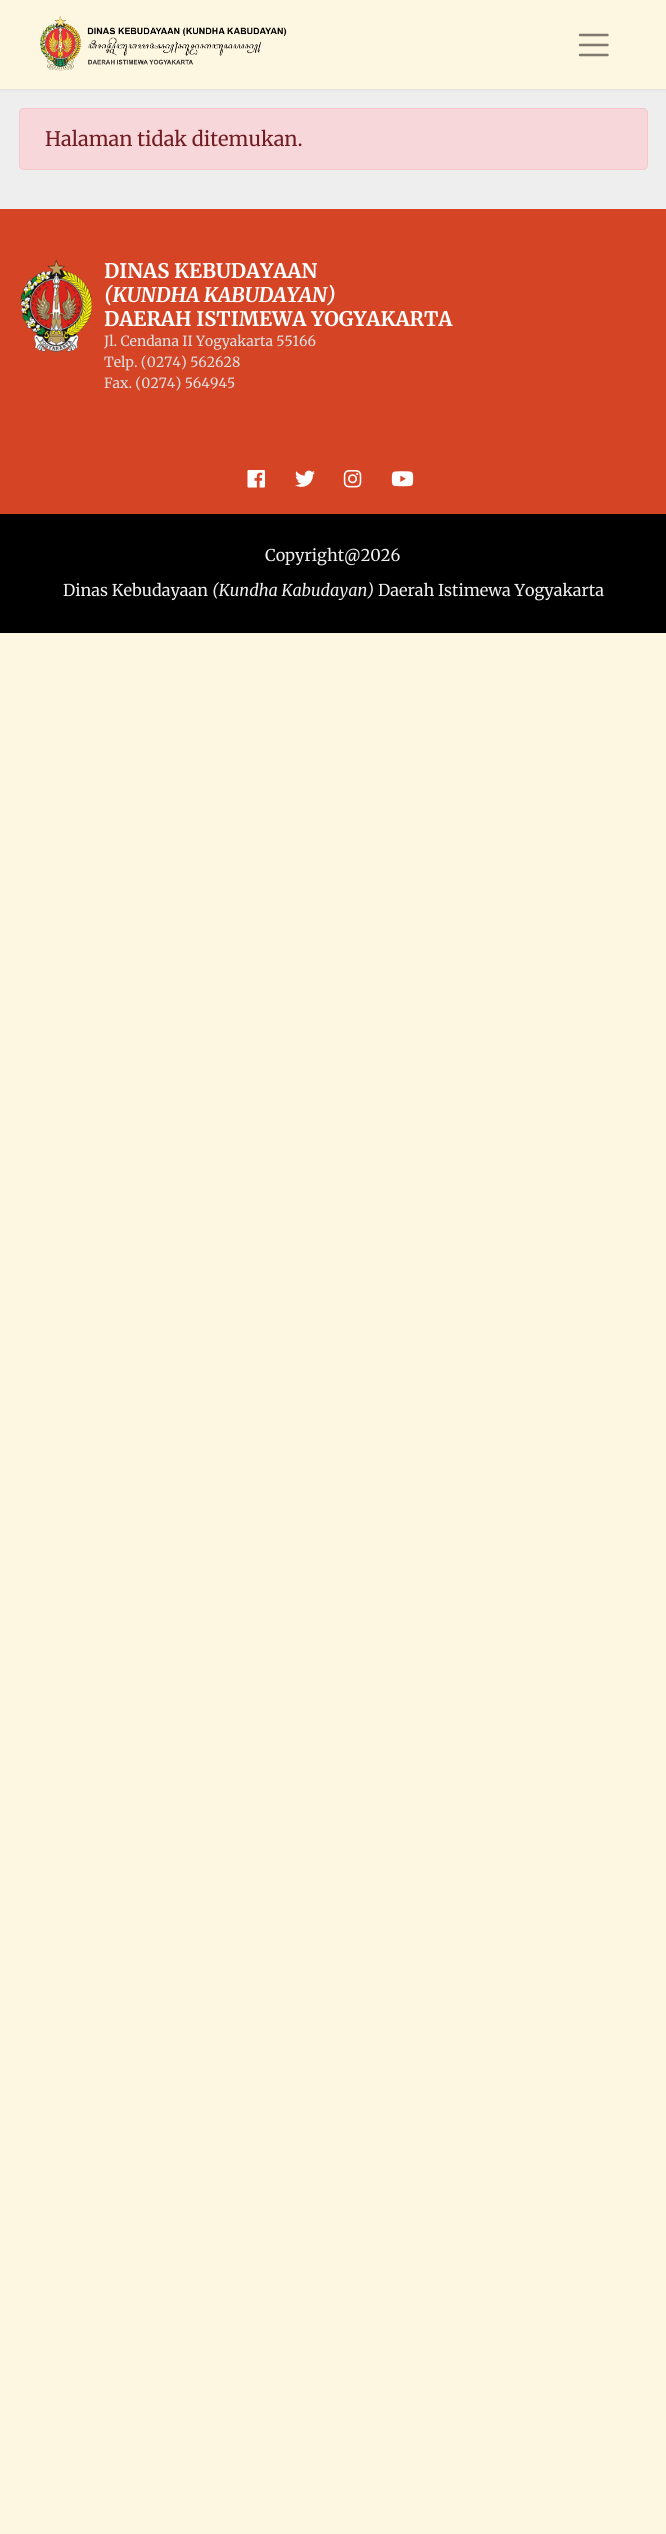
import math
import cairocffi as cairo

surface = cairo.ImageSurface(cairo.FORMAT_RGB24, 666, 2534)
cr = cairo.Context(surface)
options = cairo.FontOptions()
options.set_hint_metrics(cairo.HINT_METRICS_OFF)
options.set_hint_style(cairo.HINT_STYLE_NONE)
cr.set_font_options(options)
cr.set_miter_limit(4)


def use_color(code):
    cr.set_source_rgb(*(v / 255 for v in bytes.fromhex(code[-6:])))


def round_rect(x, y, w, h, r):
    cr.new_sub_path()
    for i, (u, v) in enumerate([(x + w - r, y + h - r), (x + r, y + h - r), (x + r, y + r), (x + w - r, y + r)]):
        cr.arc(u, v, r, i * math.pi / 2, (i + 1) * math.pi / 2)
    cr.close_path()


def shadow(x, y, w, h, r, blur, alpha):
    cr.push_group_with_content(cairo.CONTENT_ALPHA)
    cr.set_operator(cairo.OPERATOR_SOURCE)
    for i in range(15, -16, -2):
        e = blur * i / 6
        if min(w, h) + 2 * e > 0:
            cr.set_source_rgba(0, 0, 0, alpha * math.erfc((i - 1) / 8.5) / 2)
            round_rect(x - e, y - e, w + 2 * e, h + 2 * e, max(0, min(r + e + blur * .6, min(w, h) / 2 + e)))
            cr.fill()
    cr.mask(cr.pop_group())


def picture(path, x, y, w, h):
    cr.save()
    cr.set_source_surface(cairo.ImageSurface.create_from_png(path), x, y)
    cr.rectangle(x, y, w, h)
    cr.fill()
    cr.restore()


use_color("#fdf6e0")
cr.paint()
use_color("#eeeeee")
cr.rectangle(0, 89, 666, 120)
cr.fill()
use_color("#000000")
shadow(0, 1, 666, 89, 0, 2, 0.07)
use_color("#fdf6e0")
cr.rectangle(0, 0, 666, 89)
cr.fill()
picture("img1.png", 40, 16, 247, 55)
cr.new_path()
cr.move_to(580, 35)
cr.line_to(607.5, 35)
cr.move_to(580, 45)
cr.line_to(607.5, 45)
cr.move_to(580, 55)
cr.line_to(607.5, 55)
use_color("#7f7b70")
cr.set_line_width(2.5)
cr.set_line_cap(cairo.LINE_CAP_ROUND)
cr.stroke()
use_color("#f8d7da")
round_rect(19.5, 108.5, 628, 61, 4.5)
cr.fill_preserve()
use_color("#f5c6cb")
cr.set_line_width(1)
cr.set_line_cap(cairo.LINE_CAP_BUTT)
cr.stroke()
cr.select_font_face("Merriweather")
cr.set_font_size(20)
use_color("#721c24")
cr.move_to(45, 146)
cr.show_text("Halaman tidak ditemukan.")
use_color("#d54425")
cr.rectangle(0, 209, 666, 305)
cr.fill()
picture("img2.png", 247, 470, 18, 18)
picture("img3.png", 295, 470, 20, 17)
picture("img4.png", 343, 470, 19, 18)
picture("img5.png", 391, 471, 23, 16)
picture("img6.png", 20, 259, 73, 94)
cr.select_font_face("Merriweather", cairo.FONT_SLANT_NORMAL, cairo.FONT_WEIGHT_BOLD)
use_color("#ffffff")
cr.move_to(104, 278)
cr.show_text("DINAS KEBUDAYAAN")
cr.select_font_face("Merriweather", cairo.FONT_SLANT_ITALIC, cairo.FONT_WEIGHT_BOLD)
cr.move_to(104, 302)
cr.show_text("(KUNDHA KABUDAYAN)")
cr.select_font_face("Merriweather", cairo.FONT_SLANT_NORMAL, cairo.FONT_WEIGHT_BOLD)
cr.move_to(104, 326)
cr.show_text("DAERAH ISTIMEWA YOGYAKARTA")
cr.select_font_face("Merriweather")
cr.set_font_size(14)
use_color("#e0e0e0")
cr.move_to(104, 346)
cr.show_text("Jl. Cendana II Yogyakarta 55166")
cr.move_to(104, 367)
cr.show_text("Telp. (0274) 562628")
cr.move_to(104, 388)
cr.show_text("Fax. (0274) 564945")
use_color("#000000")
cr.rectangle(0, 514, 666, 119)
cr.fill()
cr.set_font_size(16.25)
use_color("#f0f0f0")
cr.move_to(265, 561)
cr.show_text("Copyright@2026")
cr.move_to(63, 596)
cr.show_text("Dinas Kebudayaan")
cr.select_font_face("Merriweather", cairo.FONT_SLANT_ITALIC)
cr.move_to(212, 596)
cr.show_text("(Kundha Kabudayan)")
cr.select_font_face("Merriweather")
cr.move_to(378, 596)
cr.show_text("Daerah Istimewa Yogyakarta")
surface.write_to_png("result.png")
